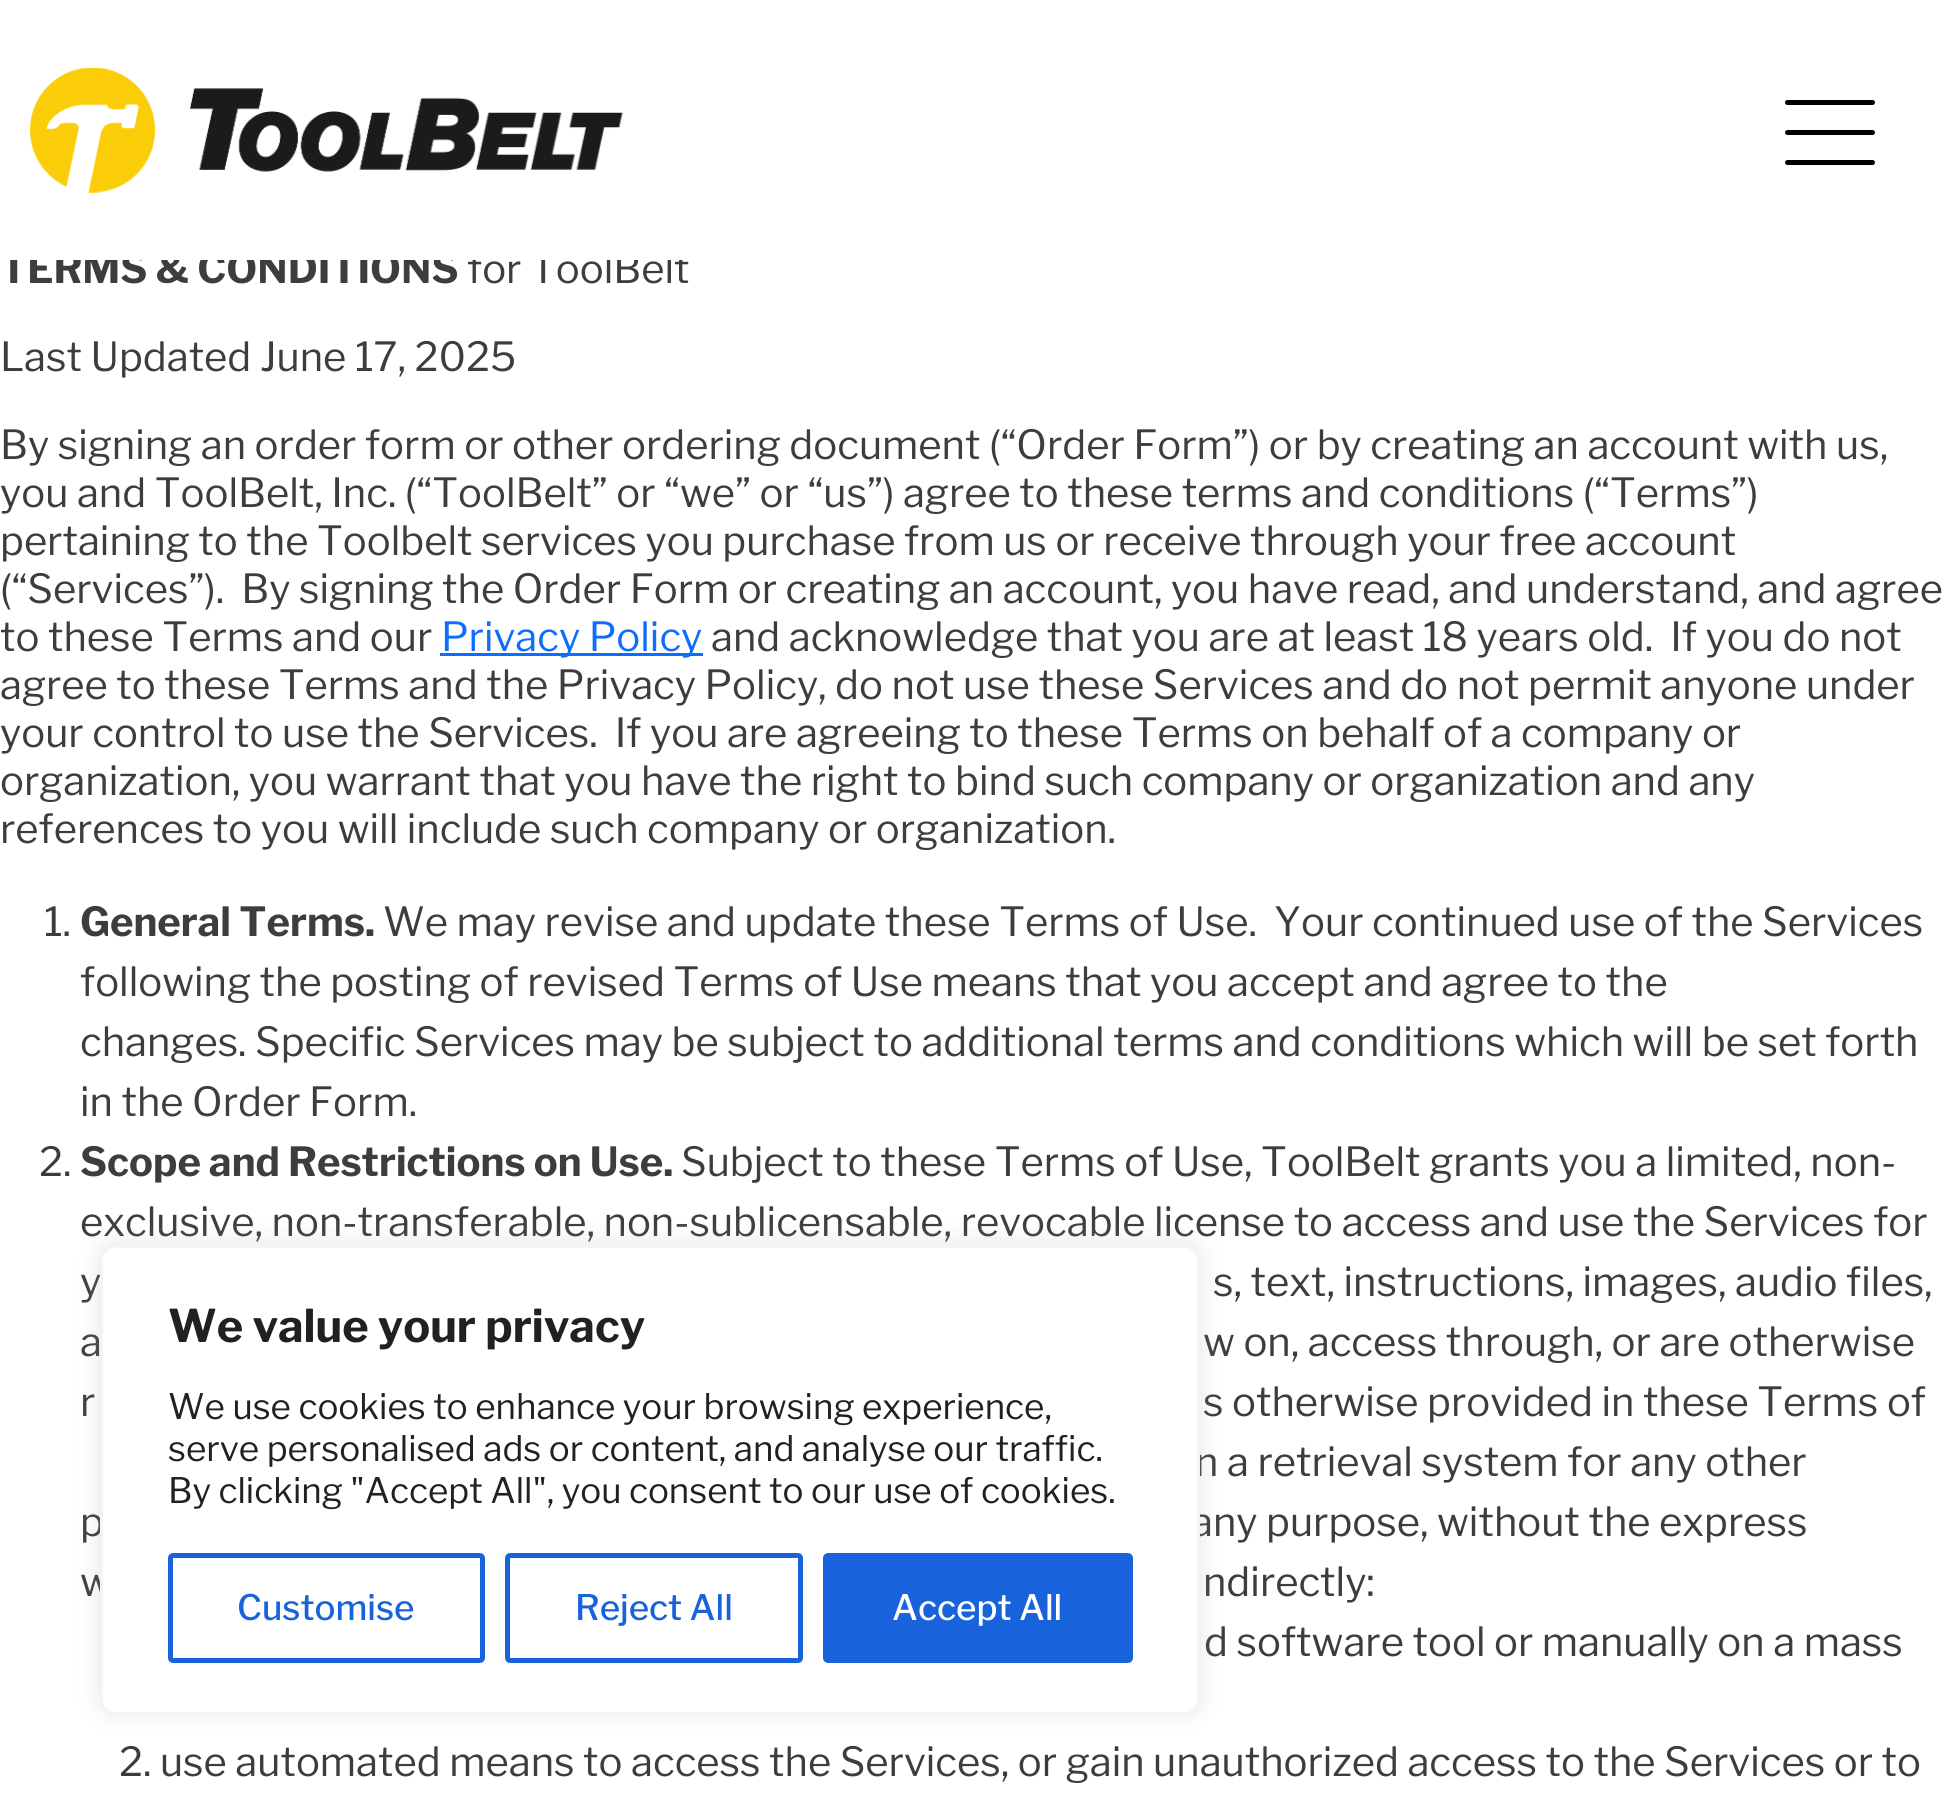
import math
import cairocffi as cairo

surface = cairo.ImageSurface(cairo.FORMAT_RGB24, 1944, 1815)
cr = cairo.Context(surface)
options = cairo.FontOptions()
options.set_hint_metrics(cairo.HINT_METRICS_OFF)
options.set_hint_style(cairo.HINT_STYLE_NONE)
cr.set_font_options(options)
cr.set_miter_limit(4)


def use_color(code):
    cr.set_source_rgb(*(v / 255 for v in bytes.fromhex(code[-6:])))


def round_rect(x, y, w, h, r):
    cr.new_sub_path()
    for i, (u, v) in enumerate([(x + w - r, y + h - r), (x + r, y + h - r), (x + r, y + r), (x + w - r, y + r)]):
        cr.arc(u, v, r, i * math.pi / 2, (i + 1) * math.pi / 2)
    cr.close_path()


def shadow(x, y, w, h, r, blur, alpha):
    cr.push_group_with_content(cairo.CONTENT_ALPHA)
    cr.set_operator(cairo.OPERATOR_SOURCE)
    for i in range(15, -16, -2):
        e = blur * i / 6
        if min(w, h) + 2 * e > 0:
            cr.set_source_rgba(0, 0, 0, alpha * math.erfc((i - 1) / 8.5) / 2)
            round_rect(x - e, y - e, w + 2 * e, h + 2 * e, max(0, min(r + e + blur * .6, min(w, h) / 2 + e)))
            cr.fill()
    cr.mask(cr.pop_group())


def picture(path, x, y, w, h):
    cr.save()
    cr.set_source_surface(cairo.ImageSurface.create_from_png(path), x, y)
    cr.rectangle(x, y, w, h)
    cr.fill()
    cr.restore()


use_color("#ffffff")
cr.paint()
cr.select_font_face("Libre Franklin", cairo.FONT_SLANT_NORMAL, cairo.FONT_WEIGHT_BOLD)
cr.set_font_size(40)
use_color("#3f3d3c")
cr.move_to(0, 283)
cr.show_text("TERMS & CONDITIONS")
cr.select_font_face("Libre Franklin")
cr.move_to(467, 283)
cr.show_text("for ToolBelt")
use_color("#ffffff")
cr.rectangle(1, 252, 682, 8)
cr.fill()
picture("img1.png", 30, 68, 593, 125)
use_color("#000000")
round_rect(1785, 100, 90, 5, 2.5)
cr.fill()
round_rect(1785, 130, 90, 5, 2.5)
cr.fill()
round_rect(1785, 160, 90, 5, 2.5)
cr.fill()
use_color("#3f3d3c")
cr.move_to(0, 371)
cr.show_text("Last Updated June 17, 2025")
cr.move_to(0, 459)
cr.show_text("By signing an order form or other ordering document (“Order Form”) or by creating an account with us,")
cr.move_to(0, 507)
cr.show_text("you and ToolBelt, Inc. (“ToolBelt” or “we” or “us”) agree to these terms and conditions (“Terms”)")
cr.move_to(0, 555)
cr.show_text("pertaining to the Toolbelt services you purchase from us or receive through your free account")
cr.move_to(0, 603)
cr.show_text("(“Services”).  By signing the Order Form or creating an account, you have read, and understand, and agree")
cr.move_to(0, 651)
cr.show_text("to these Terms and our")
use_color("#0d6efd")
cr.rectangle(440, 653, 263, 3)
cr.fill()
cr.move_to(441, 651)
cr.show_text("Privacy Policy")
use_color("#3f3d3c")
cr.move_to(711, 651)
cr.show_text("and acknowledge that you are at least 18 years old.  If you do not")
cr.move_to(0, 699)
cr.show_text("agree to these Terms and the Privacy Policy, do not use these Services and do not permit anyone under")
cr.move_to(0, 747)
cr.show_text("your control to use the Services.  If you are agreeing to these Terms on behalf of a company or")
cr.move_to(0, 795)
cr.show_text("organization, you warrant that you have the right to bind such company or organization and any")
cr.move_to(0, 843)
cr.show_text("references to you will include such company or organization.")
cr.move_to(44, 936)
cr.show_text("1.")
cr.select_font_face("Libre Franklin", cairo.FONT_SLANT_NORMAL, cairo.FONT_WEIGHT_BOLD)
cr.move_to(80, 936)
cr.show_text("General Terms.")
cr.select_font_face("Libre Franklin")
cr.move_to(383, 936)
cr.show_text("We may revise and update these Terms of Use.  Your continued use of the Services")
cr.move_to(80, 996)
cr.show_text("following the posting of revised Terms of Use means that you accept and agree to the")
cr.move_to(80, 1056)
cr.show_text("changes. Specific Services may be subject to additional terms and conditions which will be set forth")
cr.move_to(80, 1116)
cr.show_text("in the Order Form.")
cr.move_to(39, 1176)
cr.show_text("2.")
cr.select_font_face("Libre Franklin", cairo.FONT_SLANT_NORMAL, cairo.FONT_WEIGHT_BOLD)
cr.move_to(80, 1176)
cr.show_text("Scope and Restrictions on Use.")
cr.select_font_face("Libre Franklin")
cr.move_to(681, 1176)
cr.show_text("Subject to these Terms of Use, ToolBelt grants you a limited, non-")
cr.move_to(80, 1236)
cr.show_text("exclusive, non-transferable, non-sublicensable, revocable license to access and use the Services for")
cr.move_to(80, 1296)
cr.show_text("y")
cr.move_to(1213, 1296)
cr.show_text("s, text, instructions, images, audio files,")
cr.move_to(80, 1356)
cr.show_text("a")
cr.move_to(1203, 1356)
cr.show_text("w on, access through, or are otherwise")
cr.move_to(80, 1416)
cr.show_text("r")
cr.move_to(1203, 1416)
cr.show_text("s otherwise provided in these Terms of")
cr.move_to(1195, 1476)
cr.show_text("n a retrieval system for any other")
cr.move_to(80, 1536)
cr.show_text("p")
cr.move_to(1191, 1536)
cr.show_text("any purpose, without the express")
cr.move_to(80, 1596)
cr.show_text("w")
cr.move_to(1203, 1596)
cr.show_text("ndirectly:")
cr.move_to(1204, 1656)
cr.show_text("d software tool or manually on a mass")
cr.move_to(119, 1776)
cr.show_text("2. use automated means to access the Services, or gain unauthorized access to the Services or to")
use_color("#acabab")
shadow(100, 1243, 1100, 470, 15, 12.5, 0.3)
use_color("#ffffff")
round_rect(101.5, 1246.5, 1097, 467, 13.5)
cr.fill_preserve()
use_color("#f4f4f4")
cr.set_line_width(3)
cr.stroke()
cr.select_font_face("Libre Franklin", cairo.FONT_SLANT_NORMAL, cairo.FONT_WEIGHT_BOLD)
cr.set_font_size(45)
use_color("#212121")
cr.move_to(168, 1342)
cr.show_text("We value your privacy")
cr.select_font_face("Libre Franklin")
cr.set_font_size(35)
cr.move_to(168, 1419)
cr.show_text("We use cookies to enhance your browsing experience,")
cr.move_to(168, 1461)
cr.show_text("serve personalised ads or content, and analyse our traffic.")
cr.move_to(168, 1503)
cr.show_text("By clicking \"Accept All\", you consent to our use of cookies.")
round_rect(170.5, 1555.5, 312, 105, 2.5)
use_color("#1863dc")
cr.set_line_width(5)
cr.stroke()
cr.select_font_face("Libre Franklin Medium")
cr.move_to(237, 1620)
cr.show_text("Customise")
round_rect(507.5, 1555.5, 293, 105, 2.5)
cr.stroke()
cr.move_to(575, 1620)
cr.show_text("Reject All")
round_rect(825.5, 1555.5, 305, 105, 2.5)
cr.fill_preserve()
cr.stroke()
use_color("#ffffff")
cr.move_to(892, 1620)
cr.show_text("Accept All")
surface.write_to_png("result.png")
